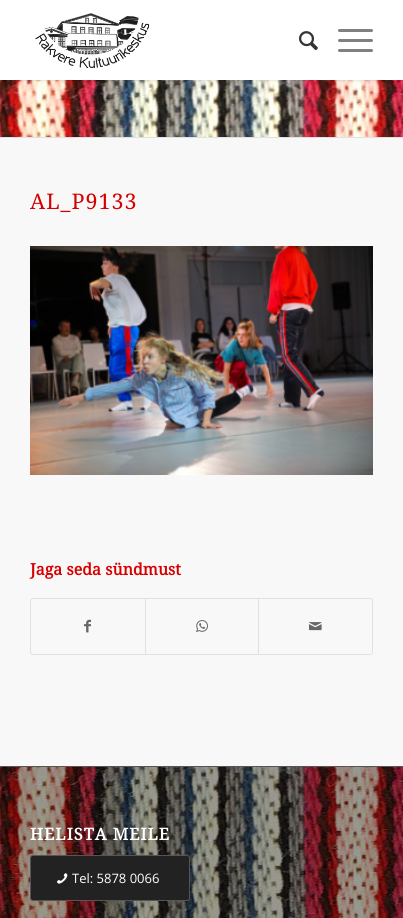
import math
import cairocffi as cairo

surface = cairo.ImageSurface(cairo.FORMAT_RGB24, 403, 918)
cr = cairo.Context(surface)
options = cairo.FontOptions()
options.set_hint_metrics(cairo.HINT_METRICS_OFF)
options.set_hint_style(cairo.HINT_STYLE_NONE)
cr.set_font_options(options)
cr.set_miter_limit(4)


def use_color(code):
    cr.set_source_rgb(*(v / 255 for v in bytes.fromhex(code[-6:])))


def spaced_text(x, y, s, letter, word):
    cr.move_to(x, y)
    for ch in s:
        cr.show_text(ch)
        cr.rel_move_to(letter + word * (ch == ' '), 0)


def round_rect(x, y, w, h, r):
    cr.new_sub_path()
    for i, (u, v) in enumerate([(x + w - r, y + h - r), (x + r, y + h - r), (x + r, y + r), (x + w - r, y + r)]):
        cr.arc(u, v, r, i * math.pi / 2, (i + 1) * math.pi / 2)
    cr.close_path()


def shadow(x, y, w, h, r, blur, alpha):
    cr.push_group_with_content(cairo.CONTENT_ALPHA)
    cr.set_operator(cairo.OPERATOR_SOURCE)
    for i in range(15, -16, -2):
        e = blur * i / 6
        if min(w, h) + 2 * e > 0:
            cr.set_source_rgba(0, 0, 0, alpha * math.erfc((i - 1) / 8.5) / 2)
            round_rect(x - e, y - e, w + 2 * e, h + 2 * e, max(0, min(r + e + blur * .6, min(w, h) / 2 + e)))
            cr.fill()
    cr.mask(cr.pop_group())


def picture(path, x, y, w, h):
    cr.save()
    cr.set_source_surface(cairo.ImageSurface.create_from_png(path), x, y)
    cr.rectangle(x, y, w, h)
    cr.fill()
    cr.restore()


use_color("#ffffff")
cr.paint()
picture("img3.png", 0, 80, 403, 57)
use_color("#000000")
shadow(-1, -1, 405, 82, 0, 1, 0.1)
use_color("#ffffff")
cr.rectangle(0, 0, 403, 80)
cr.fill()
picture("img1.png", 30, 0, 126, 80)
picture("img2.png", 299, 31, 19, 20)
use_color("#808080")
round_rect(338, 39, 35, 3, 1.5)
cr.fill()
round_rect(338, 29, 35, 3, 1.5)
cr.fill()
round_rect(338, 49, 35, 3, 1.5)
cr.fill()
use_color("#f8f8f8")
cr.rectangle(0, 138, 403, 628)
cr.fill()
use_color("#e1e1e1")
cr.rectangle(0, 137, 403, 1)
cr.fill()
cr.select_font_face("Droid Serif")
cr.set_font_size(21.5)
use_color("#d70000")
spaced_text(30, 209, "AL_P9133", 1, 0)
picture("img4.png", 30, 246, 343, 229)
cr.select_font_face("Droid Serif", cairo.FONT_SLANT_NORMAL, cairo.FONT_WEIGHT_BOLD)
cr.set_font_size(16)
cr.move_to(30, 575)
cr.show_text("Jaga seda sündmust")
round_rect(30.5, 598.5, 342, 56, 2.5)
use_color("#e1e1e1")
cr.set_line_width(1)
cr.stroke()
picture("img5.png", 84, 619, 7, 14)
cr.rectangle(145, 599, 1, 55)
cr.fill()
picture("img6.png", 196, 620, 12, 13)
cr.rectangle(258, 599, 1, 55)
cr.fill()
picture("img7.png", 309, 622, 13, 9)
picture("img8.png", 0, 767, 403, 151)
use_color("#555555")
cr.rectangle(0, 766, 403, 1)
cr.fill()
cr.set_font_size(16.5)
use_color("#ffffff")
spaced_text(30, 840, "HELISTA MEILE", 1, 0)
use_color("#222222")
round_rect(30.5, 855.5, 159, 45, 2.5)
cr.fill_preserve()
use_color("#555555")
cr.stroke()
picture("img9.png", 57, 873, 11, 11)
cr.select_font_face("Open Sans")
cr.set_font_size(13)
use_color("#ffffff")
cr.move_to(72, 883)
cr.show_text("Tel: 5878 0066")
surface.write_to_png("result.png")
